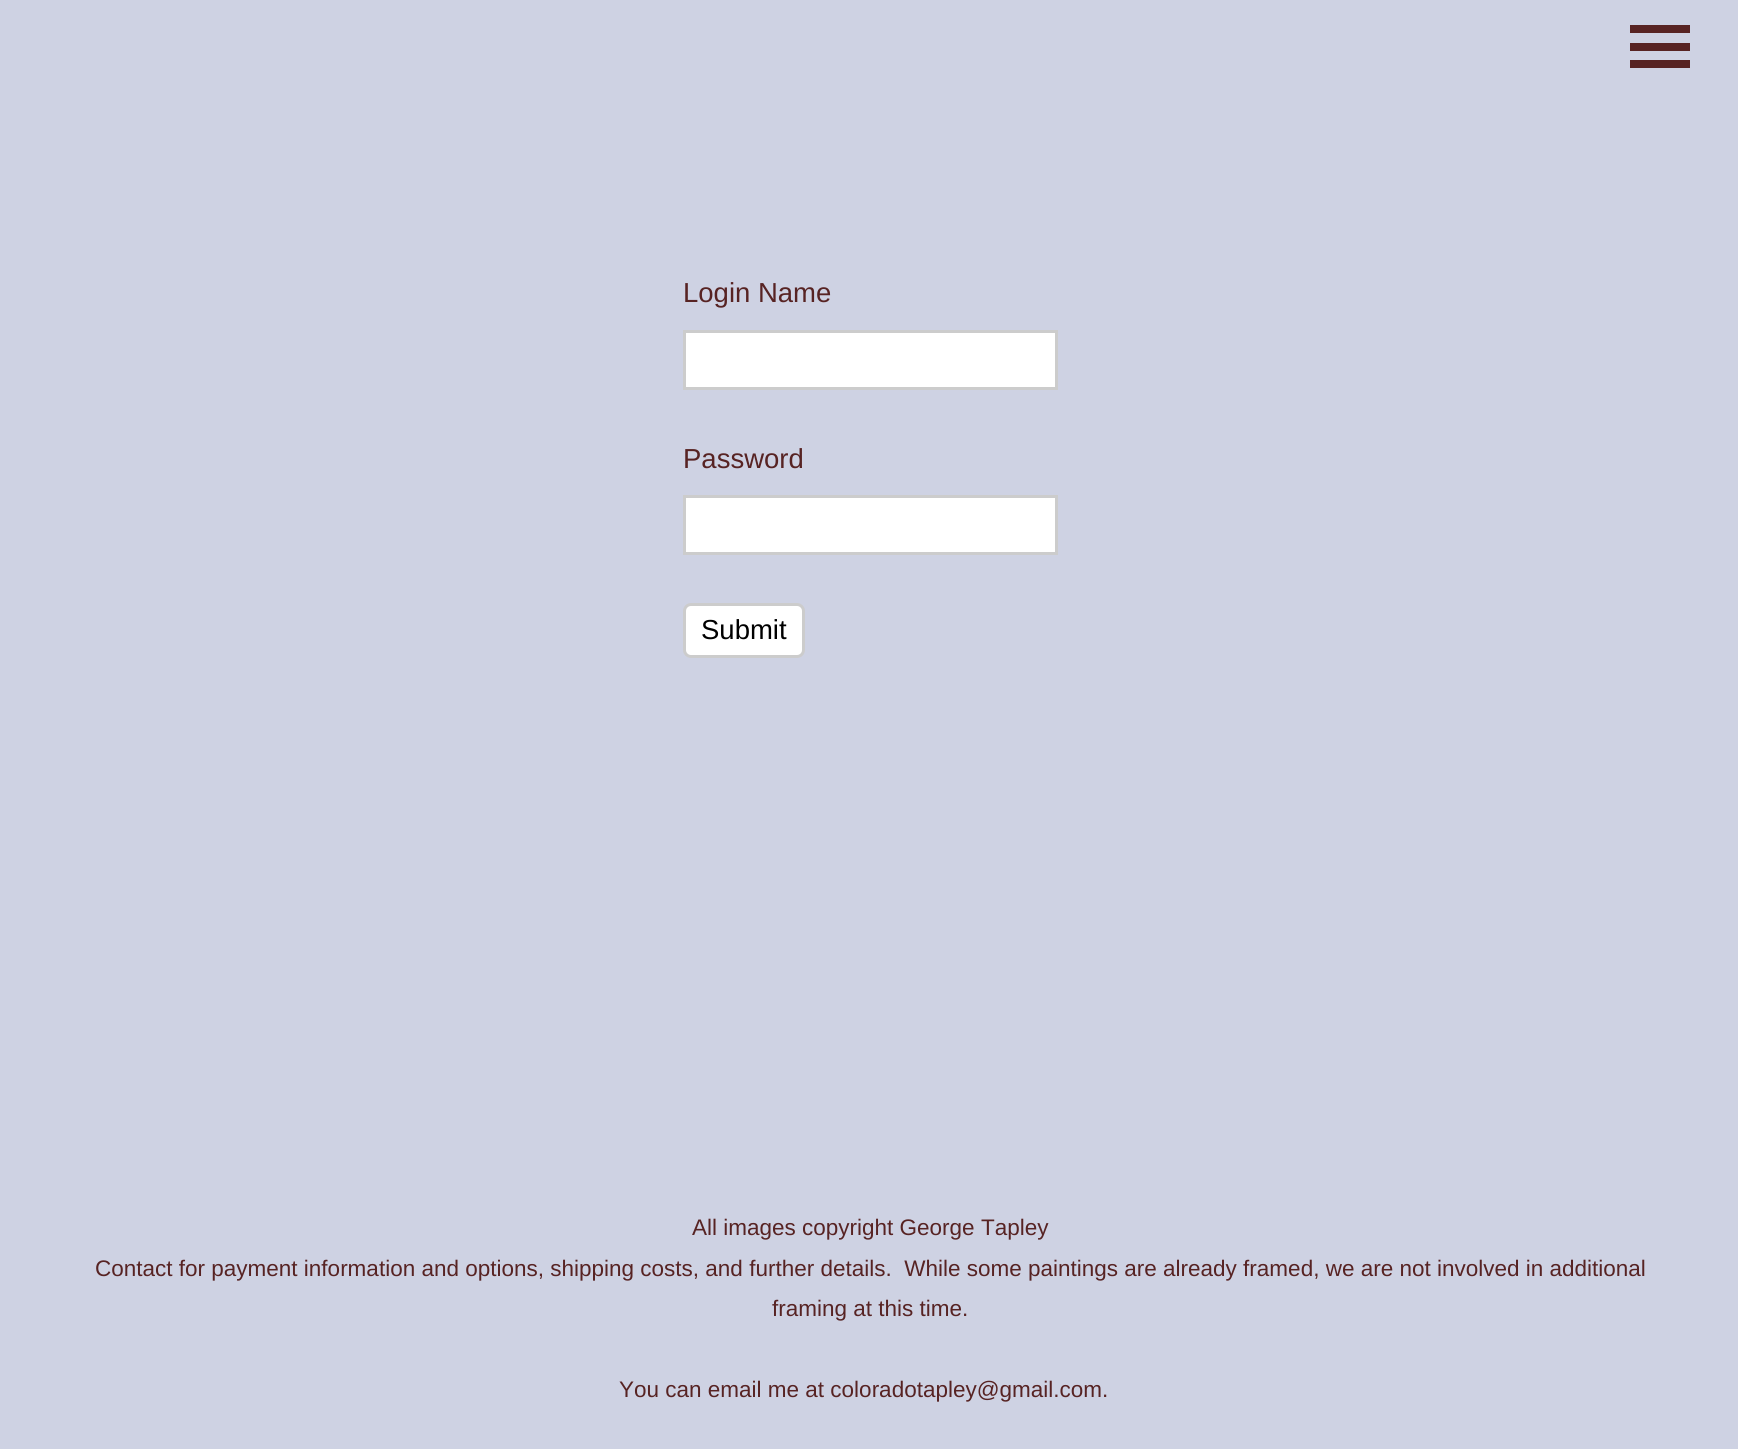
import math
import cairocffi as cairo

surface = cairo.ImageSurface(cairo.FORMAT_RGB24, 1738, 1449)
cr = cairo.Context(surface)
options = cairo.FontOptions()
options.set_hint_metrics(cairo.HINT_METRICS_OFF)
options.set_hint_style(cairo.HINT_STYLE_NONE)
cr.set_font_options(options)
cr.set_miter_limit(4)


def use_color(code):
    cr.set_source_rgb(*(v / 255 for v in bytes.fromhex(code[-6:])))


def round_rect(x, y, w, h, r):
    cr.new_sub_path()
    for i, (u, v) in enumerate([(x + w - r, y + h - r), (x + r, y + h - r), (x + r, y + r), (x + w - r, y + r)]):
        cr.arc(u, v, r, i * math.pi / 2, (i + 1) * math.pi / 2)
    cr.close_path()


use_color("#ced2e3")
cr.paint()
use_color("#572323")
cr.rectangle(1630, 25, 60, 8)
cr.fill()
cr.rectangle(1630, 43, 60, 8)
cr.fill()
cr.rectangle(1630, 60, 60, 8)
cr.fill()
cr.select_font_face("Liberation Sans")
cr.set_font_size(27.5)
cr.move_to(683, 302)
cr.show_text("Login Name")
use_color("#ffffff")
cr.rectangle(684.5, 331.5, 372, 57)
cr.fill_preserve()
use_color("#cccccc")
cr.set_line_width(3)
cr.stroke()
use_color("#572323")
cr.move_to(683, 468)
cr.show_text("Password")
use_color("#ffffff")
cr.rectangle(684.5, 496.5, 372, 57)
cr.fill_preserve()
use_color("#cccccc")
cr.stroke()
use_color("#ffffff")
round_rect(684.5, 604.5, 119, 52, 6.5)
cr.fill_preserve()
use_color("#cccccc")
cr.stroke()
use_color("#000000")
cr.move_to(701, 639)
cr.show_text("Submit")
cr.set_font_size(22.5)
use_color("#572323")
cr.move_to(692, 1235)
cr.show_text("All images copyright George Tapley")
cr.move_to(95, 1276)
cr.show_text("Contact for payment information and options, shipping costs, and further details.  While some paintings are already framed, we are not involved in additional")
cr.move_to(772, 1316)
cr.show_text("framing at this time.")
cr.move_to(619, 1397)
cr.show_text("You can email me at coloradotapley@gmail.com.")
surface.write_to_png("result.png")
